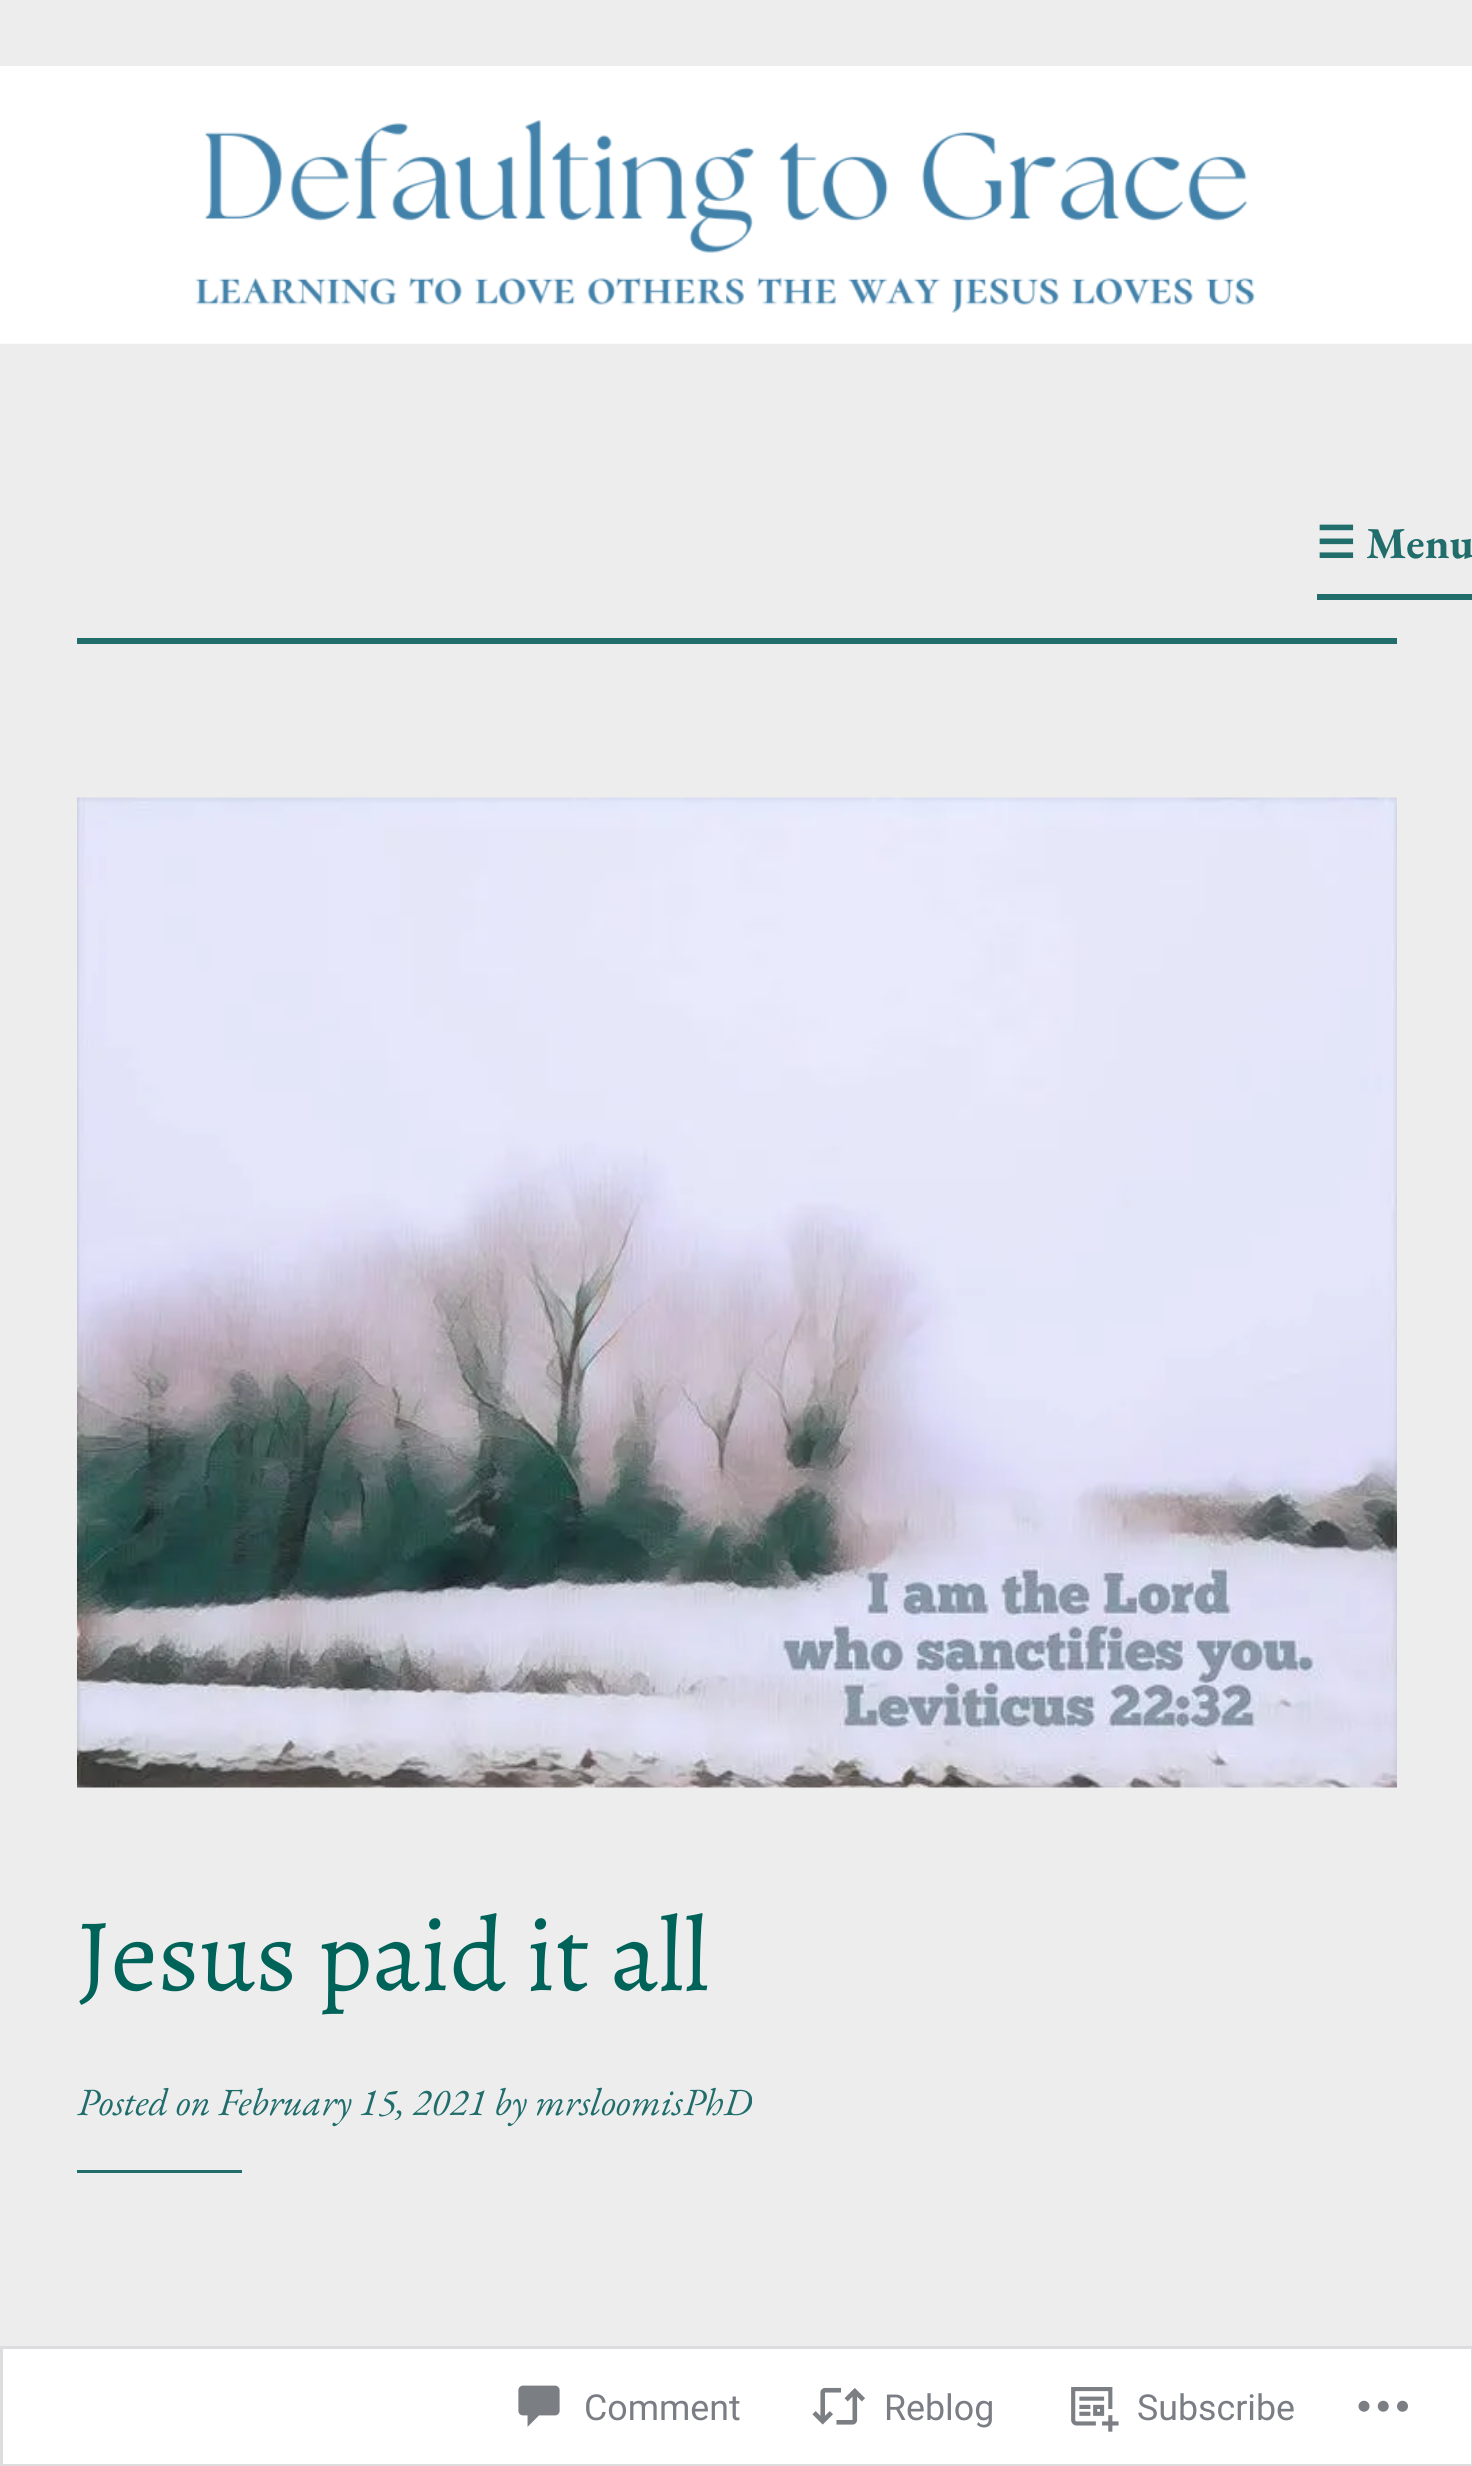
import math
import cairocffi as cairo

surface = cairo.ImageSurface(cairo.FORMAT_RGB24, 1472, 2466)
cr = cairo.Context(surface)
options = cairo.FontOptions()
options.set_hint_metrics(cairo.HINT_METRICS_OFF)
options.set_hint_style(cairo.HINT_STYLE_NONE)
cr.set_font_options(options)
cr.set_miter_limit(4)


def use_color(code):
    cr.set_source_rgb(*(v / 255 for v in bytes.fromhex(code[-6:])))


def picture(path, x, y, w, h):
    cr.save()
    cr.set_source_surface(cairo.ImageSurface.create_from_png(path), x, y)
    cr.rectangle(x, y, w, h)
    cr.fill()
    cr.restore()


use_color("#ededed")
cr.paint()
picture("img1.png", 0, 66, 1472, 278)
use_color("#206d6c")
cr.rectangle(77, 638, 1320, 6)
cr.fill()
cr.new_path()
cr.move_to(1317, 503)
cr.line_to(1317, 600)
cr.line_to(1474, 600)
cr.line_to(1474, 594)
cr.line_to(1317, 594)
cr.close_path()
cr.fill()
cr.select_font_face("DejaVu Sans", cairo.FONT_SLANT_NORMAL, cairo.FONT_WEIGHT_BOLD)
cr.set_font_size(44)
cr.move_to(1316, 558)
cr.show_text("☰")
cr.select_font_face("EB Garamond", cairo.FONT_SLANT_NORMAL, cairo.FONT_WEIGHT_BOLD)
cr.move_to(1366, 558)
cr.show_text("Menu")
picture("img2.png", 77, 797, 1320, 991)
cr.select_font_face("Alegreya")
cr.set_font_size(103.75)
use_color("#006359")
cr.move_to(77, 1990)
cr.show_text("Jesus paid it all")
cr.select_font_face("EB Garamond", cairo.FONT_SLANT_ITALIC)
cr.set_font_size(38.5)
use_color("#206d6c")
cr.move_to(77, 2115)
cr.show_text("Posted on February 15, 2021 by mrsloomisPhD")
cr.rectangle(77, 2170, 165, 3)
cr.fill()
cr.set_source_rgba(1, 1, 1, 0.98)
cr.rectangle(0, 2346, 1472, 120)
cr.fill()
cr.rectangle(1.5, 2347.5, 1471, 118)
cr.set_source_rgba(0.863, 0.863, 0.871, 0.98)
cr.set_line_width(3)
cr.stroke()
picture("img3.png", 518, 2385, 42, 42)
cr.select_font_face("Roboto")
cr.set_font_size(35.75)
use_color("#7a7e84")
cr.move_to(584, 2420)
cr.show_text("Comment")
picture("img4.png", 812, 2387, 53, 38)
cr.move_to(884, 2420)
cr.show_text("Reblog")
picture("img5.png", 1071, 2387, 48, 45)
cr.move_to(1137, 2420)
cr.show_text("Subscribe")
picture("img6.png", 1358, 2400, 50, 12)
surface.write_to_png("result.png")
